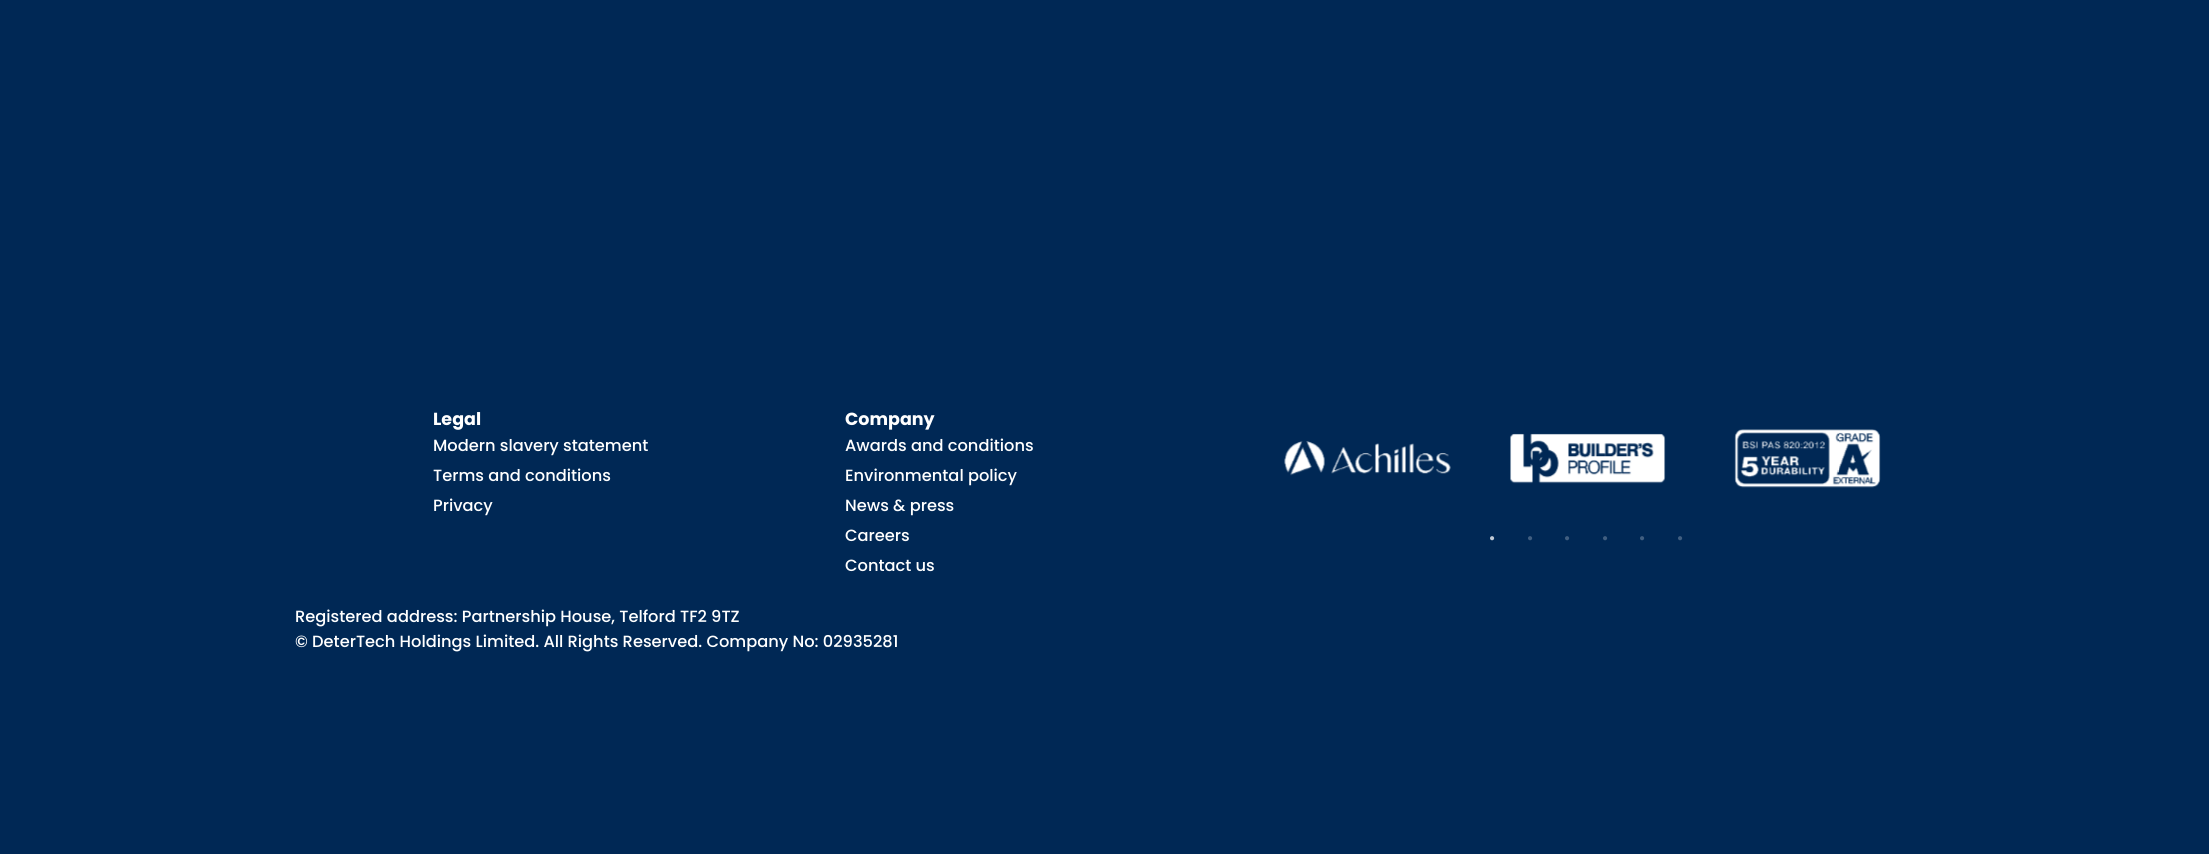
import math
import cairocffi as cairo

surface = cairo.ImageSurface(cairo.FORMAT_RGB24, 2209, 854)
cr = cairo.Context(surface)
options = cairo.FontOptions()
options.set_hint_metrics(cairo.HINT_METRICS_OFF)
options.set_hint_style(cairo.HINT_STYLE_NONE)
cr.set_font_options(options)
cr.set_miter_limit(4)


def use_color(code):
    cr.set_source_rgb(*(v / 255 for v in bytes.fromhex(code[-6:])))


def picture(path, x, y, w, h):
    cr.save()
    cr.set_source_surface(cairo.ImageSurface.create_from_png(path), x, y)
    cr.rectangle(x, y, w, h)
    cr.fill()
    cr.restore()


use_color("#002855")
cr.paint()
cr.select_font_face("Poppins", cairo.FONT_SLANT_NORMAL, cairo.FONT_WEIGHT_BOLD)
cr.set_font_size(17.5)
use_color("#ffffff")
cr.move_to(433, 425)
cr.show_text("Legal")
cr.select_font_face("Poppins Medium")
cr.set_font_size(16.25)
cr.move_to(433, 451)
cr.show_text("Modern slavery statement")
cr.move_to(433, 481)
cr.show_text("Terms and conditions")
cr.move_to(433, 511)
cr.show_text("Privacy")
cr.select_font_face("Poppins", cairo.FONT_SLANT_NORMAL, cairo.FONT_WEIGHT_BOLD)
cr.set_font_size(17.5)
cr.move_to(845, 425)
cr.show_text("Company")
cr.select_font_face("Poppins Medium")
cr.set_font_size(16.25)
cr.move_to(845, 451)
cr.show_text("Awards and conditions")
cr.move_to(845, 481)
cr.show_text("Environmental policy")
cr.move_to(845, 511)
cr.show_text("News & press")
cr.move_to(845, 541)
cr.show_text("Careers")
cr.move_to(845, 571)
cr.show_text("Contact us")
picture("img1.png", 1284, 441, 167, 35)
picture("img2.png", 1510, 433, 156, 51)
picture("img3.png", 1734, 429, 147, 59)
cr.select_font_face("Liberation Serif")
cr.set_font_size(17.5)
use_color("#bfc9d5")
cr.move_to(1489, 544)
cr.show_text("•")
use_color("#405e80")
cr.move_to(1527, 544)
cr.show_text("•")
cr.move_to(1564, 544)
cr.show_text("•")
cr.move_to(1602, 544)
cr.show_text("•")
cr.move_to(1639, 544)
cr.show_text("•")
cr.move_to(1677, 544)
cr.show_text("•")
cr.select_font_face("Poppins Medium")
cr.set_font_size(16.25)
use_color("#ffffff")
cr.move_to(295, 622)
cr.show_text("Registered address: Partnership House, Telford TF2 9TZ")
cr.move_to(295, 647)
cr.show_text("© DeterTech Holdings Limited. All Rights Reserved. Company No: 02935281")
surface.write_to_png("result.png")
